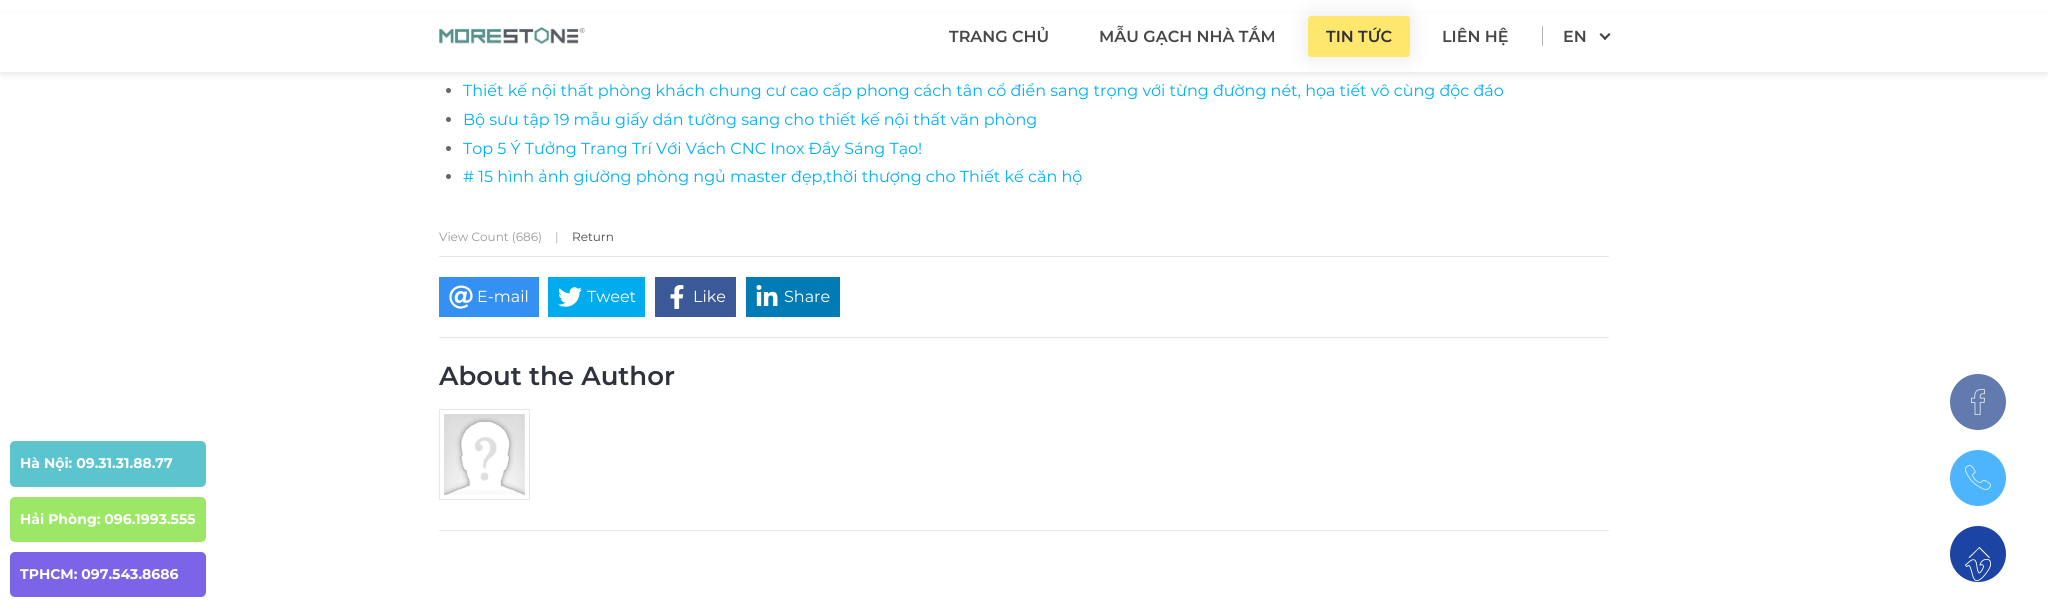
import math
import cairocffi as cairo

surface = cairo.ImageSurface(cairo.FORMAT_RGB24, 2048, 612)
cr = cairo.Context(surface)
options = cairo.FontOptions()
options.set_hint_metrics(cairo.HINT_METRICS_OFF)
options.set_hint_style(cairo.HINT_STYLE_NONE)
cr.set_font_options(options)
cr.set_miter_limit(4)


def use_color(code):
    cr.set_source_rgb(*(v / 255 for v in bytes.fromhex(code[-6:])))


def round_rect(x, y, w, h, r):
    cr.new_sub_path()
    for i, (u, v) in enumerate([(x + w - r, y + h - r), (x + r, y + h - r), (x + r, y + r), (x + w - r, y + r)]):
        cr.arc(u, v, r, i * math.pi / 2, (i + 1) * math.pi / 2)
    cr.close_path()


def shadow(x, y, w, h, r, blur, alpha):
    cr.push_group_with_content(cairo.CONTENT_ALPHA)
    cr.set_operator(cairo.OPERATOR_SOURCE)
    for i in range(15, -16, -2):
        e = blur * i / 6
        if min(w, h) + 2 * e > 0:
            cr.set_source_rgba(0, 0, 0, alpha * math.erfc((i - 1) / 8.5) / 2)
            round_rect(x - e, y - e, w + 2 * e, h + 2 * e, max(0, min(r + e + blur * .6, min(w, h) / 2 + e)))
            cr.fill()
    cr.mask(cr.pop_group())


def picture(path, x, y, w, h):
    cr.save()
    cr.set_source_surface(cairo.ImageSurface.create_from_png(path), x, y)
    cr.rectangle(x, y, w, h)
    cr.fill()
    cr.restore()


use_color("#ffffff")
cr.paint()
use_color("#000000")
shadow(1, 21, 2046, 50, 0, 5, 0.2)
use_color("#ffffff")
cr.rectangle(0, 13, 2048, 59)
cr.fill()
picture("img1.png", 439, 27, 146, 17)
cr.select_font_face("Montserrat SemiBold")
cr.set_font_size(16)
use_color("#474747")
cr.move_to(949, 42)
cr.show_text("TRANG CHỦ")
cr.move_to(1099, 42)
cr.show_text("MẪU GẠCH NHÀ TẮM")
use_color("#ffe76d")
round_rect(1308, 16, 102, 41, 3)
cr.fill()
cr.save()
cr.set_fill_rule(cairo.FILL_RULE_EVEN_ODD)
cr.new_path()
cr.move_to(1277, 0)
cr.line_to(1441, 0)
cr.line_to(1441, 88)
cr.line_to(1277, 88)
cr.close_path()
cr.move_to(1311, 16)
cr.line_to(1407, 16)
cr.curve_to(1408.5, 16, 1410, 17.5, 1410, 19)
cr.line_to(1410, 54)
cr.curve_to(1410, 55.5, 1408.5, 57, 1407, 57)
cr.line_to(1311, 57)
cr.curve_to(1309.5, 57, 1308, 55.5, 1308, 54)
cr.line_to(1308, 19)
cr.curve_to(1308, 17.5, 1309.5, 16, 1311, 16)
cr.close_path()
cr.clip()
use_color("#000000")
shadow(1308, 16, 102, 41, 3, 10, 0.1)
cr.restore()
use_color("#2e323c")
cr.move_to(1326, 42)
cr.show_text("TIN TỨC")
use_color("#474747")
cr.move_to(1442, 42)
cr.show_text("LIÊN HỆ")
use_color("#b3b3b3")
cr.rectangle(1542, 26, 1, 20)
cr.fill()
use_color("#474747")
cr.move_to(1563, 42)
cr.show_text("EN")
use_color("#424242")
cr.new_path()
cr.move_to(1609, 33)
cr.line_to(1610.5, 34.5)
cr.line_to(1605, 40)
cr.line_to(1603.5, 38.5)
cr.close_path()
cr.fill()
cr.new_path()
cr.move_to(1601, 33)
cr.line_to(1606.5, 38.5)
cr.line_to(1605, 40)
cr.line_to(1599.5, 34.5)
cr.close_path()
cr.fill()
use_color("#666666")
cr.arc(448.5, 90.5, 2.5, 0, 2 * math.pi)
cr.fill()
cr.select_font_face("Montserrat")
use_color("#00aff7")
cr.move_to(463, 96)
cr.show_text("Thiết kế nội thất phòng khách chung cư cao cấp phong cách tân cổ điển sang trọng với từng đường nét, họa tiết vô cùng độc đáo")
use_color("#666666")
cr.new_path()
cr.arc(448.5, 119.5, 2.5, 0, 2 * math.pi)
cr.fill()
use_color("#00aff7")
cr.move_to(463, 125)
cr.show_text("Bộ sưu tập 19 mẫu giấy dán tường sang cho thiết kế nội thất văn phòng")
use_color("#666666")
cr.new_path()
cr.arc(448.5, 148.5, 2.5, 0, 2 * math.pi)
cr.fill()
use_color("#00aff7")
cr.move_to(463, 154)
cr.show_text("Top 5 Ý Tưởng Trang Trí Với Vách CNC Inox Đầy Sáng Tạo!")
use_color("#666666")
cr.new_path()
cr.arc(448.5, 176.5, 2.5, 0, 2 * math.pi)
cr.fill()
use_color("#00aff7")
cr.move_to(463, 182)
cr.show_text("# 15 hình ảnh giường phòng ngủ master đẹp,thời thượng cho Thiết kế căn hộ")
use_color("#e7e7e7")
cr.rectangle(439, 256, 1170, 1)
cr.fill()
cr.set_font_size(12)
use_color("#999999")
cr.move_to(439, 241)
cr.show_text("View Count (686)")
use_color("#aaaaaa")
cr.move_to(555, 241)
cr.show_text("|")
use_color("#474747")
cr.move_to(572, 241)
cr.show_text("Return")
use_color("#e7e7e7")
cr.rectangle(439, 337, 1170, 1)
cr.fill()
use_color("#3490f3")
cr.rectangle(439, 277, 100, 40)
cr.fill()
picture("img2.png", 449, 285, 24, 24)
cr.set_font_size(16)
use_color("#ffffff")
cr.move_to(477, 302)
cr.show_text("E-mail")
use_color("#00aced")
cr.rectangle(548, 277, 97, 40)
cr.fill()
picture("img3.png", 558, 287, 24, 20)
use_color("#ffffff")
cr.move_to(587, 302)
cr.show_text("Tweet")
use_color("#3b5998")
cr.rectangle(655, 277, 81, 40)
cr.fill()
picture("img4.png", 670, 285, 14, 24)
use_color("#ffffff")
cr.move_to(693, 302)
cr.show_text("Like")
use_color("#007bb6")
cr.rectangle(746, 277, 94, 40)
cr.fill()
picture("img5.png", 756, 285, 22, 21)
use_color("#ffffff")
cr.move_to(784, 302)
cr.show_text("Share")
use_color("#e7e7e7")
cr.rectangle(439, 530, 1170, 1)
cr.fill()
cr.select_font_face("Montserrat SemiBold")
cr.set_font_size(26)
use_color("#2e323c")
cr.move_to(439, 385)
cr.show_text("About the Author")
cr.rectangle(439.5, 409.5, 90, 90)
use_color("#e7e7e7")
cr.set_line_width(1)
cr.stroke()
picture("img6.png", 444, 414, 81, 81)
use_color("#5bc4cf")
round_rect(10, 441, 196, 46, 5)
cr.fill()
cr.select_font_face("Montserrat", cairo.FONT_SLANT_NORMAL, cairo.FONT_WEIGHT_BOLD)
cr.set_font_size(14)
use_color("#ffffff")
cr.move_to(20, 468)
cr.show_text("Hà Nội: 09.31.31.88.77")
use_color("#9ce765")
round_rect(10, 497, 196, 45, 5)
cr.fill()
use_color("#ffffff")
cr.move_to(20, 524)
cr.show_text("Hải Phòng: 096.1993.555")
use_color("#7b64e8")
round_rect(10, 552, 196, 45, 5)
cr.fill()
use_color("#ffffff")
cr.move_to(20, 579)
cr.show_text("TPHCM: 097.543.8686")
use_color("#627aad")
cr.new_path()
cr.arc(1978, 402, 28, 0, 2 * math.pi)
cr.fill()
picture("img7.png", 1971, 389, 14, 26)
use_color("#4db5fd")
cr.arc(1978, 478, 28, 0, 2 * math.pi)
cr.fill()
picture("img8.png", 1965, 465, 26, 25)
use_color("#1c44a4")
cr.arc(1978, 554, 28, 0, 2 * math.pi)
cr.fill()
picture("img9.png", 1965, 559, 26, 22)
use_color("#ffffff")
cr.new_path()
cr.move_to(1979.5, 547)
cr.line_to(1990, 557.5)
cr.line_to(1989, 558)
cr.line_to(1978.5, 547.5)
cr.close_path()
cr.fill()
cr.new_path()
cr.move_to(1979.5, 547)
cr.line_to(1980, 547.5)
cr.line_to(1969.5, 558)
cr.line_to(1968.5, 557.5)
cr.close_path()
cr.fill()
surface.write_to_png("result.png")
